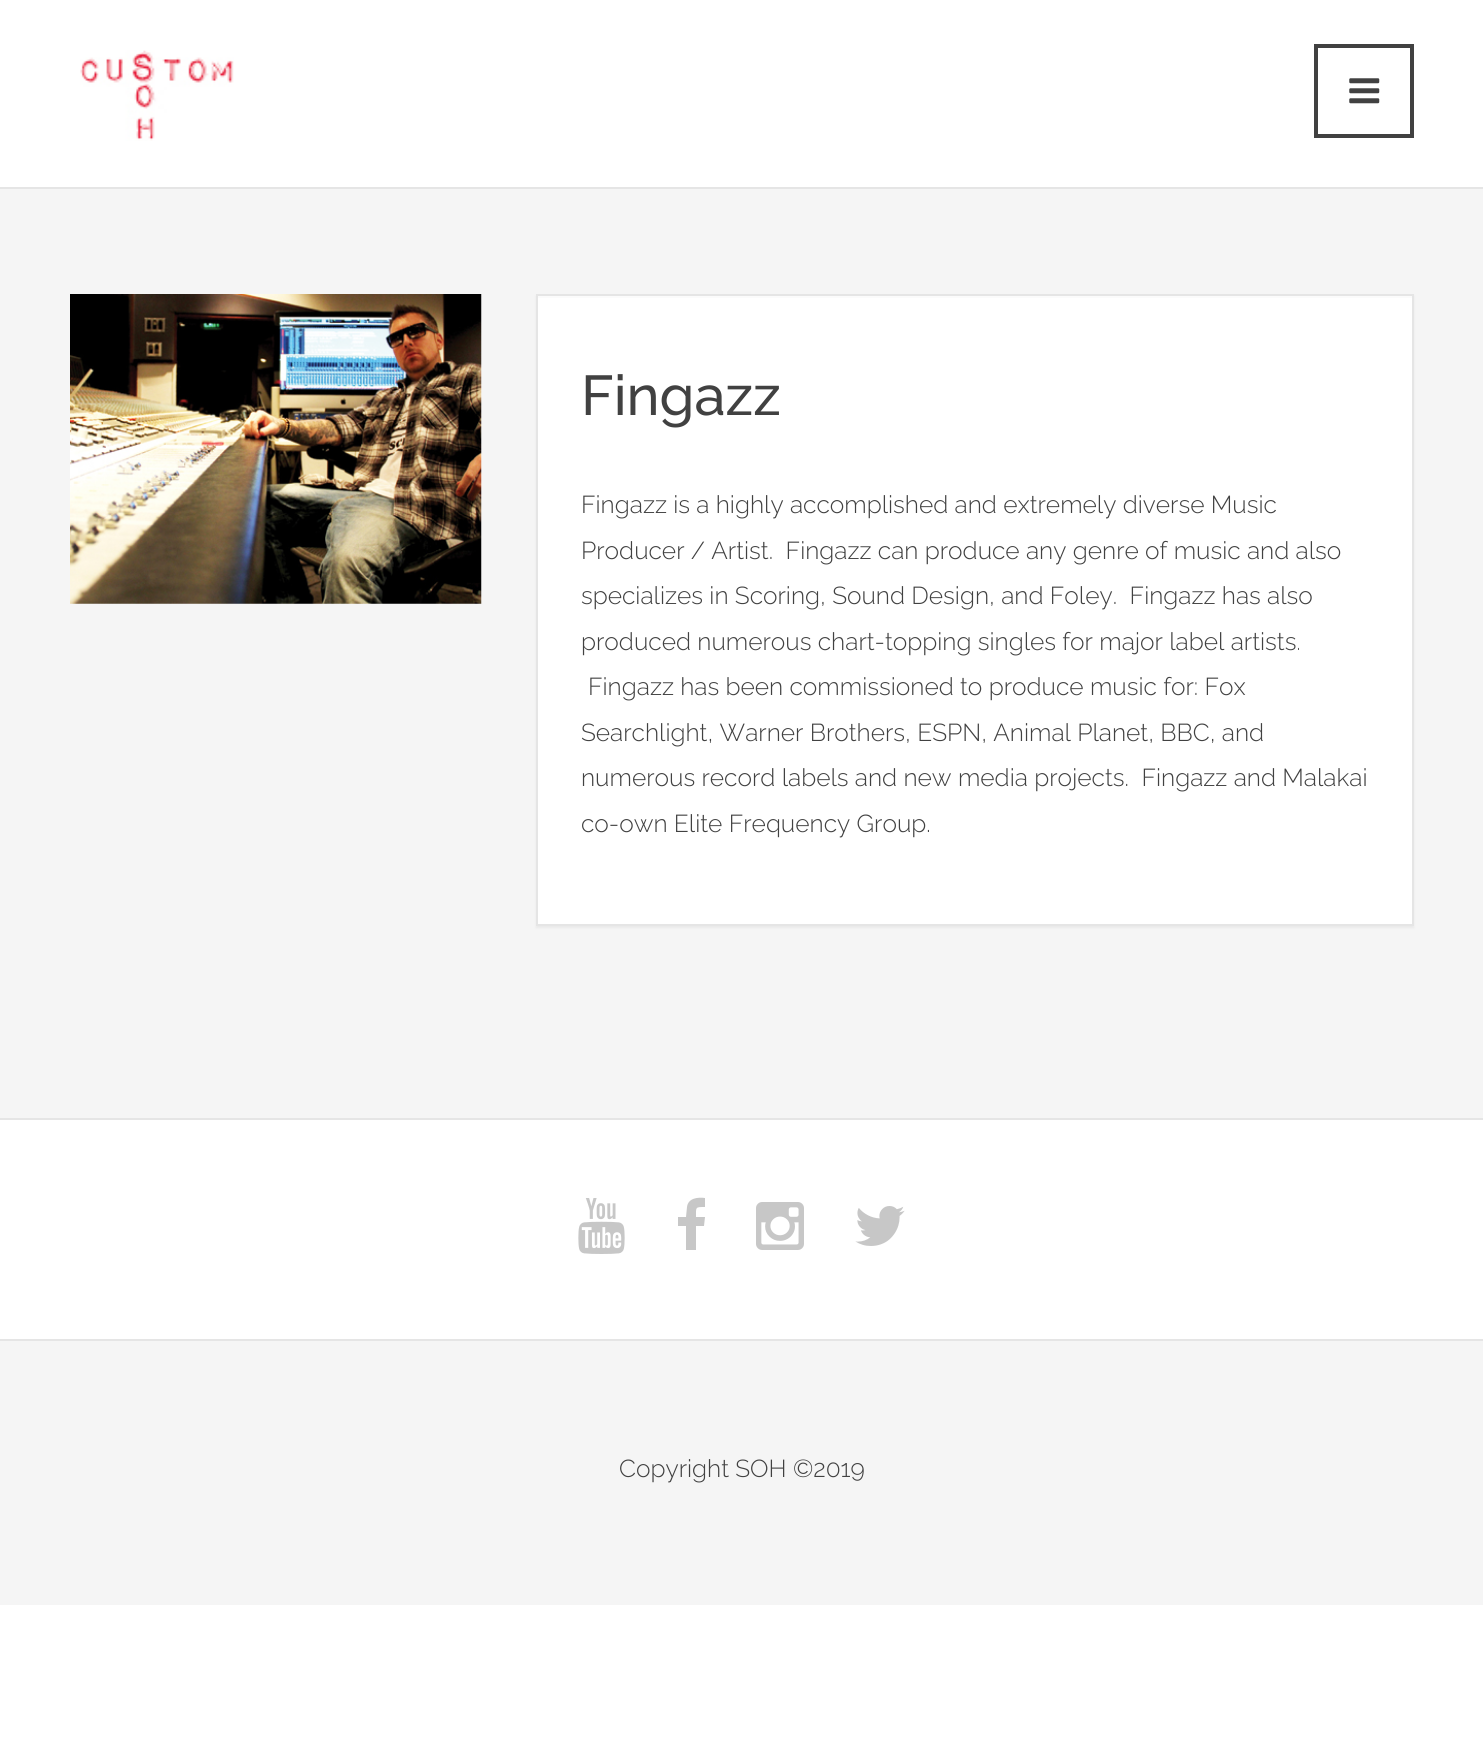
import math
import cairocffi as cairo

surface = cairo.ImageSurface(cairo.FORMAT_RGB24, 1483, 1751)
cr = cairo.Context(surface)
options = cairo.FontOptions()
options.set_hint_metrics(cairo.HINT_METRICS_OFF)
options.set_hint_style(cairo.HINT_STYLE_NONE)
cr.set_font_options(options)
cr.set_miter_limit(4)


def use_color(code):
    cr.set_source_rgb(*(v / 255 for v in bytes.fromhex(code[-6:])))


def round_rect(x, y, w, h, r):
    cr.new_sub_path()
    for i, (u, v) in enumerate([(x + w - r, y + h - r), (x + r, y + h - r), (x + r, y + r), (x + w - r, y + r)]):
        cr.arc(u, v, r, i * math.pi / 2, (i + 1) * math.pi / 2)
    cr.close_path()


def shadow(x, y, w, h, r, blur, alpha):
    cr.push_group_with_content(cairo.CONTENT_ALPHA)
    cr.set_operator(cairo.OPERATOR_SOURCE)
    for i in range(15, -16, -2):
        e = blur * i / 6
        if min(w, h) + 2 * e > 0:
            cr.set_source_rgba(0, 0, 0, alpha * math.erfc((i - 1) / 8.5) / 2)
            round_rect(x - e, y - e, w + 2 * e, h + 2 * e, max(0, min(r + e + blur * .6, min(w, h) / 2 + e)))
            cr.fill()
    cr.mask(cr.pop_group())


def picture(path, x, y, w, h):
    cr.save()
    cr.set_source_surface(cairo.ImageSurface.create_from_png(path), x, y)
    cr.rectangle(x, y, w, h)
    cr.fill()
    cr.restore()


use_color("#ffffff")
cr.paint()
use_color("#e5e5e5")
cr.rectangle(0, 187, 1483, 2)
cr.fill()
picture("img1.png", 80, 50, 154, 91)
cr.rectangle(1316, 46, 96, 90)
use_color("#414141")
cr.set_line_width(4)
cr.stroke()
picture("img2.png", 1349, 78, 31, 26)
use_color("#f5f5f5")
cr.rectangle(0, 189, 1483, 929)
cr.fill()
picture("img3.png", 70, 294, 412, 310)
use_color("#eaeaea")
shadow(536, 296, 878, 632, 0, 1, 1)
use_color("#ffffff")
cr.rectangle(538, 298, 874, 626)
cr.fill()
use_color("#fbfbfb")
cr.rectangle(537, 296, 875, 2)
cr.fill()
cr.rectangle(537, 295, 876, 630)
use_color("#e5e5e5")
cr.set_line_width(2)
cr.stroke()
cr.select_font_face("Raleway Medium")
cr.set_font_size(56)
use_color("#414141")
cr.move_to(581, 415)
cr.show_text("Fingazz")
cr.select_font_face("Raleway Light")
cr.set_font_size(24.5)
cr.move_to(581, 513)
cr.show_text("Fingazz is a highly accomplished and extremely diverse Music")
cr.move_to(581, 559)
cr.show_text("Producer / Artist.  Fingazz can produce any genre of music and also")
cr.move_to(581, 604)
cr.show_text("specializes in Scoring, Sound Design, and Foley.  Fingazz has also")
cr.move_to(581, 650)
cr.show_text("produced numerous chart-topping singles for major label artists.")
cr.move_to(588, 695)
cr.show_text("Fingazz has been commissioned to produce music for: Fox")
cr.move_to(581, 741)
cr.show_text("Searchlight, Warner Brothers, ESPN, Animal Planet, BBC, and")
cr.move_to(581, 786)
cr.show_text("numerous record labels and new media projects.  Fingazz and Malakai")
cr.move_to(581, 832)
cr.show_text("co-own Elite Frequency Group.")
use_color("#e5e5e5")
cr.rectangle(0, 1118, 1483, 2)
cr.fill()
cr.rectangle(0, 1339, 1483, 2)
cr.fill()
picture("img4.png", 578, 1198, 47, 56)
use_color("#c7c7c7")
cr.new_path()
cr.move_to(678, 1226)
cr.line_to(678, 1217)
cr.line_to(686, 1217)
cr.line_to(687, 1207)
cr.curve_to(688, 1198, 698, 1197, 705, 1198)
cr.line_to(705, 1207)
cr.curve_to(695, 1207, 696, 1207, 696, 1217)
cr.line_to(705, 1217)
cr.line_to(704, 1226)
cr.line_to(696, 1226)
cr.line_to(696, 1250)
cr.line_to(686, 1250)
cr.line_to(686, 1226)
cr.close_path()
cr.fill()
picture("img5.png", 756, 1202, 48, 48)
picture("img6.png", 855, 1206, 50, 40)
use_color("#f5f5f5")
cr.rectangle(0, 1341, 1483, 264)
cr.fill()
use_color("#414141")
cr.move_to(619, 1477)
cr.show_text("Copyright SOH ©2019")
surface.write_to_png("result.png")
